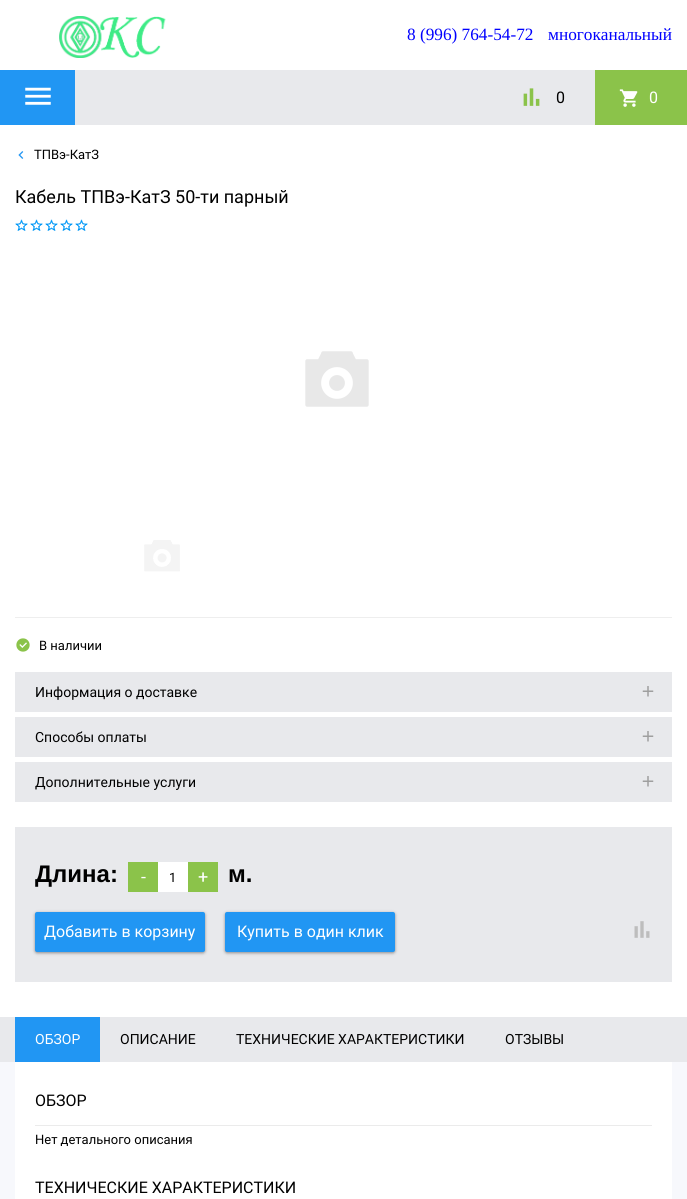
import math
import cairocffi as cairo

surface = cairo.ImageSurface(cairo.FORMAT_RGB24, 687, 1199)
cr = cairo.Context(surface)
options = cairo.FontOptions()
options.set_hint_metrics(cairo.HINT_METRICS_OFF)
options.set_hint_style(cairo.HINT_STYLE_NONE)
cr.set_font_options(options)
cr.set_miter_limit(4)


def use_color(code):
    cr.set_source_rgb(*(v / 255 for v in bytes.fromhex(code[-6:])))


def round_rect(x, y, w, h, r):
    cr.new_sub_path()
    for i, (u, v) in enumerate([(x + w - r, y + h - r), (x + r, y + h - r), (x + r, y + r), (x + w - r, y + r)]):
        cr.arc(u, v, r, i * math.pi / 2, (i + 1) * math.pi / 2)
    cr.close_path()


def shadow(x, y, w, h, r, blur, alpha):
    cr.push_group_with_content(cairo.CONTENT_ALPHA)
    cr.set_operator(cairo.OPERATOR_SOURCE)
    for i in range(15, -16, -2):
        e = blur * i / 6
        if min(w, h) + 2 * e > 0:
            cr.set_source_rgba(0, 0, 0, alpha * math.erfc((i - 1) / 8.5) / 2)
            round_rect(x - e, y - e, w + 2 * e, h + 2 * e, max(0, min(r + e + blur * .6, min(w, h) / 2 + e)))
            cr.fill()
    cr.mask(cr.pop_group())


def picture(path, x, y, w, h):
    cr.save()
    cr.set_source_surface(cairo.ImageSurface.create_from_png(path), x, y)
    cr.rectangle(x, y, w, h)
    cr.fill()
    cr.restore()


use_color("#ffffff")
cr.paint()
picture("img1.png", 59, 16, 107, 42)
cr.select_font_face("Liberation Serif")
cr.set_font_size(17.25)
use_color("#0000ff")
cr.move_to(407, 40)
cr.show_text("8 (996) 764-54-72")
cr.move_to(548, 40)
cr.show_text("многоканальный")
use_color("#e8e9ec")
cr.rectangle(75, 70, 520, 55)
cr.fill()
use_color("#2196f3")
cr.rectangle(0, 70, 75, 55)
cr.fill()
picture("img2.png", 25, 87, 26, 18)
picture("img3.png", 523, 88, 17, 18)
cr.select_font_face("Roboto")
cr.set_font_size(16)
use_color("#000000")
cr.move_to(556, 103)
cr.show_text("0")
use_color("#8bc34a")
cr.rectangle(595, 70, 92, 55)
cr.fill()
picture("img4.png", 619, 89, 19, 18)
use_color("#ffffff")
cr.move_to(649, 103)
cr.show_text("0")
picture("img5.png", 18, 151, 6, 8)
cr.set_font_size(13)
use_color("#000000")
cr.move_to(34, 159)
cr.show_text("ТПВэ-КатЗ")
cr.set_font_size(18)
cr.move_to(15, 203)
cr.show_text("Кабель ТПВэ-КатЗ 50-ти парный")
picture("img6.png", 15, 219, 13, 12)
picture("img6.png", 30, 219, 13, 12)
picture("img6.png", 45, 219, 13, 12)
picture("img6.png", 60, 219, 13, 12)
picture("img6.png", 75, 219, 13, 12)
picture("img7.png", 305, 351, 64, 56)
picture("img8.png", 144, 540, 36, 32)
use_color("#eeeeee")
cr.rectangle(15, 617, 657, 1)
cr.fill()
picture("img9.png", 16, 638, 14, 14)
cr.set_font_size(13)
use_color("#000000")
cr.move_to(39, 650)
cr.show_text("В наличии")
use_color("#e8e9ec")
cr.rectangle(15, 672, 657, 40)
cr.fill()
cr.set_font_size(14)
use_color("#000000")
cr.move_to(35, 697)
cr.show_text("Информация о доставке")
picture("img10.png", 642, 686, 12, 11)
use_color("#e8e9ec")
cr.rectangle(15, 717, 657, 40)
cr.fill()
use_color("#000000")
cr.move_to(35, 742)
cr.show_text("Способы оплаты")
picture("img10.png", 642, 731, 12, 11)
use_color("#e8e9ec")
cr.rectangle(15, 762, 657, 40)
cr.fill()
use_color("#000000")
cr.move_to(35, 787)
cr.show_text("Дополнительные услуги")
picture("img10.png", 642, 776, 12, 11)
use_color("#e8e9ec")
cr.rectangle(15, 827, 657, 155)
cr.fill()
cr.select_font_face("Liberation Sans", cairo.FONT_SLANT_NORMAL, cairo.FONT_WEIGHT_BOLD)
cr.set_font_size(24)
use_color("#000000")
cr.move_to(35, 882)
cr.show_text("Длина:")
use_color("#8bc34a")
cr.rectangle(128, 862, 30, 30)
cr.fill()
cr.select_font_face("Roboto")
cr.set_font_size(18)
use_color("#ffffff")
cr.move_to(141, 883)
cr.show_text("-")
cr.rectangle(158, 862, 30, 30)
cr.fill()
cr.set_font_size(13)
use_color("#000000")
cr.move_to(169, 882)
cr.show_text("1")
use_color("#8bc34a")
cr.rectangle(188, 862, 30, 30)
cr.fill()
cr.set_font_size(18)
use_color("#ffffff")
cr.move_to(198, 883)
cr.show_text("+")
cr.select_font_face("Liberation Sans", cairo.FONT_SLANT_NORMAL, cairo.FONT_WEIGHT_BOLD)
cr.set_font_size(24)
use_color("#000000")
cr.move_to(228, 882)
cr.show_text("м.")
use_color("#000000")
shadow(35, 913, 170, 40, 2, 1.5, 0.4)
use_color("#2196f3")
round_rect(35, 912, 170, 40, 2)
cr.fill()
cr.select_font_face("Roboto")
cr.set_font_size(16)
use_color("#ffffff")
cr.move_to(44, 937)
cr.show_text("Добавить в корзину")
use_color("#000000")
shadow(225, 913, 170, 40, 2, 1.5, 0.4)
use_color("#2196f3")
round_rect(225, 912, 170, 40, 2)
cr.fill()
use_color("#ffffff")
cr.move_to(237, 937)
cr.show_text("Купить в один клик")
picture("img11.png", 634, 921, 16, 17)
use_color("#f7f8fc")
cr.rectangle(0, 1062, 687, 137)
cr.fill()
use_color("#e8e9ec")
cr.rectangle(0, 1017, 687, 45)
cr.fill()
use_color("#2196f3")
cr.rectangle(15, 1017, 85, 45)
cr.fill()
cr.set_font_size(14)
use_color("#ffffff")
cr.move_to(35, 1044)
cr.show_text("ОБЗОР")
use_color("#000000")
cr.move_to(120, 1044)
cr.show_text("ОПИСАНИЕ")
cr.move_to(236, 1044)
cr.show_text("ТЕХНИЧЕСКИЕ ХАРАКТЕРИСТИКИ")
cr.move_to(505, 1044)
cr.show_text("ОТЗЫВЫ")
use_color("#ffffff")
cr.rectangle(15, 1062, 657, 137)
cr.fill()
cr.set_font_size(16)
use_color("#000000")
cr.move_to(35, 1106)
cr.show_text("ОБЗОР")
use_color("#ebebeb")
cr.rectangle(35, 1125, 617, 1)
cr.fill()
cr.set_font_size(13)
use_color("#000000")
cr.move_to(35, 1144)
cr.show_text("Нет детального описания")
cr.set_font_size(16)
cr.move_to(35, 1193)
cr.show_text("ТЕХНИЧЕСКИЕ ХАРАКТЕРИСТИКИ")
surface.write_to_png("result.png")
